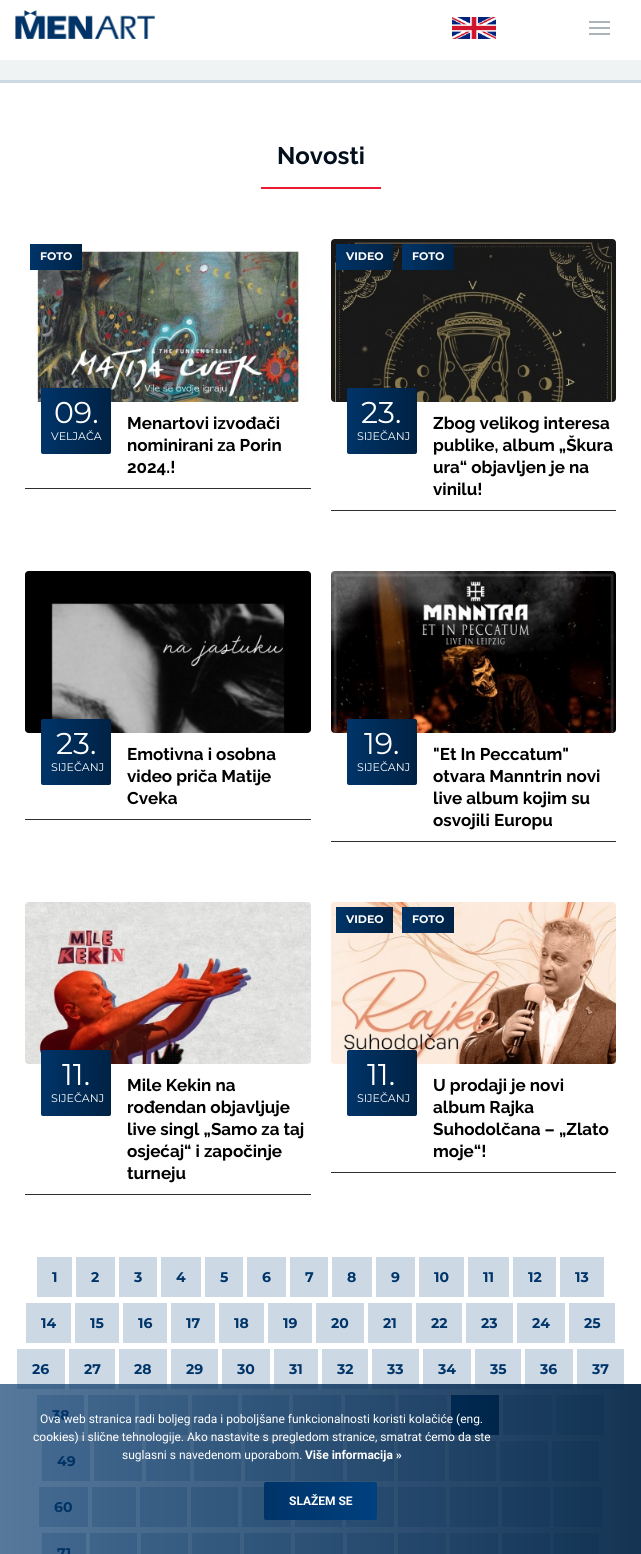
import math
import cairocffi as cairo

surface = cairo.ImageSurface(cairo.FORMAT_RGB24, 641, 1554)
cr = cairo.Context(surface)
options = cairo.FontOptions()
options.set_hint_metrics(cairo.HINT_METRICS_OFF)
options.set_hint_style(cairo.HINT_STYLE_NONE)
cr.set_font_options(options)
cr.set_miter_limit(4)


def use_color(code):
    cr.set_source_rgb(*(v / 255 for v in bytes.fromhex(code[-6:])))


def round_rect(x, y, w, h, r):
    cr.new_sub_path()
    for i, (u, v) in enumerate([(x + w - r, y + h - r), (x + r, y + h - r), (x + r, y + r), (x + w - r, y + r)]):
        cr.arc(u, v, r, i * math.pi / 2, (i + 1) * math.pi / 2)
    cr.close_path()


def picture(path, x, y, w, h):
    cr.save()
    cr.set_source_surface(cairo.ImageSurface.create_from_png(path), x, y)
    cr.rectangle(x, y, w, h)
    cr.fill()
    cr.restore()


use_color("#f0f3f4")
cr.paint()
use_color("#ffffff")
cr.rectangle(0, 0, 641, 60)
cr.fill()
picture("img1.png", 15, 10, 140, 29)
picture("img2.png", 452, 17, 44, 22)
use_color("#aab5bb")
cr.rectangle(589, 21, 21, 2)
cr.fill()
cr.rectangle(589, 27, 21, 2)
cr.fill()
cr.rectangle(589, 33, 21, 2)
cr.fill()
use_color("#ffffff")
cr.rectangle(0, 83, 641, 1471)
cr.fill()
use_color("#ccd9e5")
cr.rectangle(0, 80, 641, 3)
cr.fill()
use_color("#ed1c35")
cr.rectangle(261, 187, 120, 2)
cr.fill()
cr.select_font_face("Raleway Thin")
cr.set_font_size(24)
use_color("#030f1d")
cr.move_to(277, 164)
cr.show_text("Novosti")
picture("img3.png", 28, 250, 279, 152)
gradient = cairo.LinearGradient(30, 257, 82, 257)
gradient.add_color_stop_rgba(0, 0, 0.204, 0.408, 1)
gradient.add_color_stop_rgba(1, 0, 0.133, 0.267, 1)
cr.set_source(gradient)
cr.rectangle(30, 244, 52, 26)
cr.fill()
cr.select_font_face("Montserrat", cairo.FONT_SLANT_NORMAL, cairo.FONT_WEIGHT_BOLD)
cr.set_font_size(11)
use_color("#ffffff")
cr.move_to(40, 260)
cr.show_text("FOTO")
use_color("#2f2f2f")
cr.rectangle(25, 488, 286, 1)
cr.fill()
gradient = cairo.LinearGradient(41, 421, 111, 421)
gradient.add_color_stop_rgba(0, 0, 0.204, 0.408, 1)
gradient.add_color_stop_rgba(1, 0, 0.133, 0.267, 1)
cr.set_source(gradient)
round_rect(41, 388, 70, 66, 2)
cr.fill()
cr.select_font_face("Montserrat")
cr.set_font_size(30)
use_color("#ffffff")
cr.move_to(54, 423)
cr.show_text("09.")
cr.set_font_size(11)
cr.move_to(51, 440)
cr.show_text("VELJAČA")
cr.select_font_face("Raleway Thin")
cr.set_font_size(17)
use_color("#000000")
cr.move_to(127, 429)
cr.show_text("Menartovi izvođači")
cr.move_to(127, 451)
cr.show_text("nominirani za Porin")
cr.move_to(127, 473)
cr.show_text("2024.!")
picture("img4.png", 331, 239, 285, 163)
gradient = cairo.LinearGradient(336, 257, 393, 257)
gradient.add_color_stop_rgba(0, 0, 0.204, 0.408, 1)
gradient.add_color_stop_rgba(1, 0, 0.133, 0.267, 1)
cr.set_source(gradient)
cr.rectangle(336, 244, 57, 26)
cr.fill()
cr.select_font_face("Montserrat", cairo.FONT_SLANT_NORMAL, cairo.FONT_WEIGHT_BOLD)
cr.set_font_size(11)
use_color("#ffffff")
cr.move_to(346, 260)
cr.show_text("VIDEO")
gradient = cairo.LinearGradient(402, 257, 454, 257)
gradient.add_color_stop_rgba(0, 0, 0.204, 0.408, 1)
gradient.add_color_stop_rgba(1, 0, 0.133, 0.267, 1)
cr.set_source(gradient)
cr.rectangle(402, 244, 52, 26)
cr.fill()
use_color("#ffffff")
cr.move_to(412, 260)
cr.show_text("FOTO")
use_color("#2f2f2f")
cr.rectangle(331, 510, 285, 1)
cr.fill()
gradient = cairo.LinearGradient(347, 421, 417, 421)
gradient.add_color_stop_rgba(0, 0, 0.204, 0.408, 1)
gradient.add_color_stop_rgba(1, 0, 0.133, 0.267, 1)
cr.set_source(gradient)
round_rect(347, 388, 70, 66, 2)
cr.fill()
cr.select_font_face("Montserrat")
cr.set_font_size(30)
use_color("#ffffff")
cr.move_to(361, 423)
cr.show_text("23.")
cr.set_font_size(11)
cr.move_to(357, 440)
cr.show_text("SIJEČANJ")
cr.select_font_face("Raleway Thin")
cr.set_font_size(17)
use_color("#000000")
cr.move_to(433, 429)
cr.show_text("Zbog velikog interesa")
cr.move_to(433, 451)
cr.show_text("publike, album „Škura")
cr.move_to(433, 473)
cr.show_text("ura“ objavljen je na")
cr.move_to(433, 495)
cr.show_text("vinilu!")
picture("img5.png", 25, 571, 286, 162)
use_color("#2f2f2f")
cr.rectangle(25, 819, 286, 1)
cr.fill()
gradient = cairo.LinearGradient(41, 752, 111, 752)
gradient.add_color_stop_rgba(0, 0, 0.204, 0.408, 1)
gradient.add_color_stop_rgba(1, 0, 0.133, 0.267, 1)
cr.set_source(gradient)
round_rect(41, 719, 70, 66, 2)
cr.fill()
cr.select_font_face("Montserrat")
cr.set_font_size(30)
use_color("#ffffff")
cr.move_to(56, 754)
cr.show_text("23.")
cr.set_font_size(11)
cr.move_to(51, 771)
cr.show_text("SIJEČANJ")
cr.select_font_face("Raleway Thin")
cr.set_font_size(17)
use_color("#000000")
cr.move_to(127, 760)
cr.show_text("Emotivna i osobna")
cr.move_to(127, 782)
cr.show_text("video priča Matije")
cr.move_to(127, 804)
cr.show_text("Cveka")
picture("img6.png", 331, 571, 285, 162)
use_color("#2f2f2f")
cr.rectangle(331, 841, 285, 1)
cr.fill()
gradient = cairo.LinearGradient(347, 752, 417, 752)
gradient.add_color_stop_rgba(0, 0, 0.204, 0.408, 1)
gradient.add_color_stop_rgba(1, 0, 0.133, 0.267, 1)
cr.set_source(gradient)
round_rect(347, 719, 70, 66, 2)
cr.fill()
cr.select_font_face("Montserrat")
cr.set_font_size(30)
use_color("#ffffff")
cr.move_to(364, 754)
cr.show_text("19.")
cr.set_font_size(11)
cr.move_to(357, 771)
cr.show_text("SIJEČANJ")
cr.select_font_face("Raleway Thin")
cr.set_font_size(17)
use_color("#000000")
cr.move_to(433, 760)
cr.show_text("\"Et In Peccatum\"")
cr.move_to(433, 782)
cr.show_text("otvara Manntrin novi")
cr.move_to(433, 804)
cr.show_text("live album kojim su")
cr.move_to(433, 826)
cr.show_text("osvojili Europu")
picture("img7.png", 25, 902, 286, 162)
use_color("#2f2f2f")
cr.rectangle(25, 1194, 286, 1)
cr.fill()
gradient = cairo.LinearGradient(41, 1083, 111, 1083)
gradient.add_color_stop_rgba(0, 0, 0.204, 0.408, 1)
gradient.add_color_stop_rgba(1, 0, 0.133, 0.267, 1)
cr.set_source(gradient)
round_rect(41, 1050, 70, 66, 2)
cr.fill()
cr.select_font_face("Montserrat")
cr.set_font_size(30)
use_color("#ffffff")
cr.move_to(62, 1085)
cr.show_text("11.")
cr.set_font_size(11)
cr.move_to(51, 1102)
cr.show_text("SIJEČANJ")
cr.select_font_face("Raleway Thin")
cr.set_font_size(17)
use_color("#000000")
cr.move_to(127, 1091)
cr.show_text("Mile Kekin na")
cr.move_to(127, 1113)
cr.show_text("rođendan objavljuje")
cr.move_to(127, 1135)
cr.show_text("live singl „Samo za taj")
cr.move_to(127, 1157)
cr.show_text("osjećaj“ i započinje")
cr.move_to(127, 1179)
cr.show_text("turneju")
picture("img8.png", 331, 902, 285, 162)
gradient = cairo.LinearGradient(336, 920, 393, 920)
gradient.add_color_stop_rgba(0, 0, 0.204, 0.408, 1)
gradient.add_color_stop_rgba(1, 0, 0.133, 0.267, 1)
cr.set_source(gradient)
cr.rectangle(336, 907, 57, 26)
cr.fill()
cr.select_font_face("Montserrat", cairo.FONT_SLANT_NORMAL, cairo.FONT_WEIGHT_BOLD)
cr.set_font_size(11)
use_color("#ffffff")
cr.move_to(346, 923)
cr.show_text("VIDEO")
gradient = cairo.LinearGradient(402, 920, 454, 920)
gradient.add_color_stop_rgba(0, 0, 0.204, 0.408, 1)
gradient.add_color_stop_rgba(1, 0, 0.133, 0.267, 1)
cr.set_source(gradient)
cr.rectangle(402, 907, 52, 26)
cr.fill()
use_color("#ffffff")
cr.move_to(412, 923)
cr.show_text("FOTO")
use_color("#2f2f2f")
cr.rectangle(331, 1172, 285, 1)
cr.fill()
gradient = cairo.LinearGradient(347, 1083, 417, 1083)
gradient.add_color_stop_rgba(0, 0, 0.204, 0.408, 1)
gradient.add_color_stop_rgba(1, 0, 0.133, 0.267, 1)
cr.set_source(gradient)
round_rect(347, 1050, 70, 66, 2)
cr.fill()
cr.select_font_face("Montserrat")
cr.set_font_size(30)
use_color("#ffffff")
cr.move_to(367, 1085)
cr.show_text("11.")
cr.set_font_size(11)
cr.move_to(357, 1102)
cr.show_text("SIJEČANJ")
cr.select_font_face("Raleway Thin")
cr.set_font_size(17)
use_color("#000000")
cr.move_to(433, 1091)
cr.show_text("U prodaji je novi")
cr.move_to(433, 1113)
cr.show_text("album Rajka")
cr.move_to(433, 1135)
cr.show_text("Suhodolčana – „Zlato")
cr.move_to(433, 1157)
cr.show_text("moje“!")
use_color("#ccd9e5")
cr.rectangle(37, 1257, 35, 40)
cr.fill()
cr.select_font_face("Montserrat", cairo.FONT_SLANT_NORMAL, cairo.FONT_WEIGHT_BOLD)
cr.set_font_size(14)
use_color("#003468")
cr.move_to(52, 1282)
cr.show_text("1")
use_color("#ccd9e5")
cr.rectangle(76, 1257, 39, 40)
cr.fill()
use_color("#003468")
cr.move_to(91, 1282)
cr.show_text("2")
use_color("#ccd9e5")
cr.rectangle(119, 1257, 38, 40)
cr.fill()
use_color("#003468")
cr.move_to(134, 1282)
cr.show_text("3")
use_color("#ccd9e5")
cr.rectangle(161, 1257, 40, 40)
cr.fill()
use_color("#003468")
cr.move_to(176, 1282)
cr.show_text("4")
use_color("#ccd9e5")
cr.rectangle(205, 1257, 38, 40)
cr.fill()
use_color("#003468")
cr.move_to(220, 1282)
cr.show_text("5")
use_color("#ccd9e5")
cr.rectangle(247, 1257, 39, 40)
cr.fill()
use_color("#003468")
cr.move_to(262, 1282)
cr.show_text("6")
use_color("#ccd9e5")
cr.rectangle(290, 1257, 38, 40)
cr.fill()
use_color("#003468")
cr.move_to(305, 1282)
cr.show_text("7")
use_color("#ccd9e5")
cr.rectangle(332, 1257, 40, 40)
cr.fill()
use_color("#003468")
cr.move_to(347, 1282)
cr.show_text("8")
use_color("#ccd9e5")
cr.rectangle(376, 1257, 39, 40)
cr.fill()
use_color("#003468")
cr.move_to(391, 1282)
cr.show_text("9")
use_color("#ccd9e5")
cr.rectangle(419, 1257, 45, 40)
cr.fill()
use_color("#003468")
cr.move_to(434, 1282)
cr.show_text("10")
use_color("#ccd9e5")
cr.rectangle(468, 1257, 41, 40)
cr.fill()
use_color("#003468")
cr.move_to(483, 1282)
cr.show_text("11")
use_color("#ccd9e5")
cr.rectangle(513, 1257, 43, 40)
cr.fill()
use_color("#003468")
cr.move_to(528, 1282)
cr.show_text("12")
use_color("#ccd9e5")
cr.rectangle(560, 1257, 44, 40)
cr.fill()
use_color("#003468")
cr.move_to(575, 1282)
cr.show_text("13")
use_color("#ccd9e5")
cr.rectangle(26, 1303, 45, 40)
cr.fill()
use_color("#003468")
cr.move_to(41, 1328)
cr.show_text("14")
use_color("#ccd9e5")
cr.rectangle(75, 1303, 44, 40)
cr.fill()
use_color("#003468")
cr.move_to(90, 1328)
cr.show_text("15")
use_color("#ccd9e5")
cr.rectangle(123, 1303, 44, 40)
cr.fill()
use_color("#003468")
cr.move_to(138, 1328)
cr.show_text("16")
use_color("#ccd9e5")
cr.rectangle(171, 1303, 44, 40)
cr.fill()
use_color("#003468")
cr.move_to(186, 1328)
cr.show_text("17")
use_color("#ccd9e5")
cr.rectangle(219, 1303, 45, 40)
cr.fill()
use_color("#003468")
cr.move_to(234, 1328)
cr.show_text("18")
use_color("#ccd9e5")
cr.rectangle(268, 1303, 44, 40)
cr.fill()
use_color("#003468")
cr.move_to(283, 1328)
cr.show_text("19")
use_color("#ccd9e5")
cr.rectangle(316, 1303, 48, 40)
cr.fill()
use_color("#003468")
cr.move_to(331, 1328)
cr.show_text("20")
use_color("#ccd9e5")
cr.rectangle(368, 1303, 44, 40)
cr.fill()
use_color("#003468")
cr.move_to(383, 1328)
cr.show_text("21")
use_color("#ccd9e5")
cr.rectangle(416, 1303, 46, 40)
cr.fill()
use_color("#003468")
cr.move_to(431, 1328)
cr.show_text("22")
use_color("#ccd9e5")
cr.rectangle(466, 1303, 47, 40)
cr.fill()
use_color("#003468")
cr.move_to(481, 1328)
cr.show_text("23")
use_color("#ccd9e5")
cr.rectangle(517, 1303, 48, 40)
cr.fill()
use_color("#003468")
cr.move_to(532, 1328)
cr.show_text("24")
use_color("#ccd9e5")
cr.rectangle(569, 1303, 46, 40)
cr.fill()
use_color("#003468")
cr.move_to(584, 1328)
cr.show_text("25")
use_color("#ccd9e5")
cr.rectangle(17, 1349, 48, 40)
cr.fill()
use_color("#003468")
cr.move_to(32, 1374)
cr.show_text("26")
use_color("#ccd9e5")
cr.rectangle(69, 1349, 46, 40)
cr.fill()
use_color("#003468")
cr.move_to(84, 1374)
cr.show_text("27")
use_color("#ccd9e5")
cr.rectangle(119, 1349, 48, 40)
cr.fill()
use_color("#003468")
cr.move_to(134, 1374)
cr.show_text("28")
use_color("#ccd9e5")
cr.rectangle(171, 1349, 47, 40)
cr.fill()
use_color("#003468")
cr.move_to(186, 1374)
cr.show_text("29")
use_color("#ccd9e5")
cr.rectangle(222, 1349, 48, 40)
cr.fill()
use_color("#003468")
cr.move_to(237, 1374)
cr.show_text("30")
use_color("#ccd9e5")
cr.rectangle(274, 1349, 44, 40)
cr.fill()
use_color("#003468")
cr.move_to(289, 1374)
cr.show_text("31")
use_color("#ccd9e5")
cr.rectangle(322, 1349, 46, 40)
cr.fill()
use_color("#003468")
cr.move_to(337, 1374)
cr.show_text("32")
use_color("#ccd9e5")
cr.rectangle(372, 1349, 47, 40)
cr.fill()
use_color("#003468")
cr.move_to(387, 1374)
cr.show_text("33")
use_color("#ccd9e5")
cr.rectangle(423, 1349, 48, 40)
cr.fill()
use_color("#003468")
cr.move_to(438, 1374)
cr.show_text("34")
use_color("#ccd9e5")
cr.rectangle(475, 1349, 46, 40)
cr.fill()
use_color("#003468")
cr.move_to(490, 1374)
cr.show_text("35")
use_color("#ccd9e5")
cr.rectangle(525, 1349, 48, 40)
cr.fill()
use_color("#003468")
cr.move_to(540, 1374)
cr.show_text("36")
use_color("#ccd9e5")
cr.rectangle(577, 1349, 47, 40)
cr.fill()
use_color("#003468")
cr.move_to(592, 1374)
cr.show_text("37")
use_color("#ccd9e5")
cr.rectangle(37, 1395, 47, 40)
cr.fill()
use_color("#003468")
cr.move_to(52, 1420)
cr.show_text("38")
use_color("#ccd9e5")
cr.rectangle(88, 1395, 47, 40)
cr.fill()
cr.rectangle(139, 1395, 49, 40)
cr.fill()
cr.rectangle(192, 1395, 46, 40)
cr.fill()
cr.rectangle(242, 1395, 47, 40)
cr.fill()
cr.rectangle(293, 1395, 48, 40)
cr.fill()
cr.rectangle(345, 1395, 50, 40)
cr.fill()
cr.rectangle(399, 1395, 48, 40)
cr.fill()
gradient = cairo.LinearGradient(451, 1415, 499, 1415)
gradient.add_color_stop_rgba(0, 0, 0.204, 0.408, 1)
gradient.add_color_stop_rgba(1, 0, 0.133, 0.267, 1)
cr.set_source(gradient)
cr.rectangle(451, 1395, 48, 40)
cr.fill()
use_color("#ccd9e5")
cr.rectangle(503, 1395, 49, 40)
cr.fill()
cr.rectangle(556, 1395, 48, 40)
cr.fill()
cr.rectangle(42, 1441, 48, 40)
cr.fill()
use_color("#003468")
cr.move_to(57, 1466)
cr.show_text("49")
use_color("#ccd9e5")
cr.rectangle(94, 1441, 48, 40)
cr.fill()
cr.rectangle(146, 1441, 44, 40)
cr.fill()
cr.rectangle(194, 1441, 47, 40)
cr.fill()
cr.rectangle(245, 1441, 46, 40)
cr.fill()
cr.rectangle(295, 1441, 48, 40)
cr.fill()
cr.rectangle(347, 1441, 47, 40)
cr.fill()
cr.rectangle(398, 1441, 47, 40)
cr.fill()
cr.rectangle(449, 1441, 47, 40)
cr.fill()
cr.rectangle(500, 1441, 48, 40)
cr.fill()
cr.rectangle(552, 1441, 47, 40)
cr.fill()
cr.rectangle(39, 1487, 49, 40)
cr.fill()
use_color("#003468")
cr.move_to(54, 1512)
cr.show_text("60")
use_color("#ccd9e5")
cr.rectangle(92, 1487, 44, 40)
cr.fill()
cr.rectangle(140, 1487, 47, 40)
cr.fill()
cr.rectangle(191, 1487, 47, 40)
cr.fill()
cr.rectangle(242, 1487, 49, 40)
cr.fill()
cr.rectangle(346, 1487, 48, 40)
cr.fill()
cr.rectangle(398, 1487, 48, 40)
cr.fill()
cr.rectangle(450, 1487, 48, 40)
cr.fill()
cr.rectangle(502, 1487, 48, 40)
cr.fill()
cr.rectangle(554, 1487, 48, 40)
cr.fill()
cr.rectangle(295, 1520, 47, 7)
cr.fill()
cr.rectangle(42, 1533, 44, 21)
cr.fill()
use_color("#003468")
cr.move_to(57, 1558)
cr.show_text("71")
use_color("#ccd9e5")
cr.rectangle(90, 1533, 47, 21)
cr.fill()
cr.rectangle(141, 1533, 47, 21)
cr.fill()
cr.rectangle(192, 1533, 48, 21)
cr.fill()
cr.rectangle(244, 1533, 47, 21)
cr.fill()
cr.rectangle(295, 1533, 48, 21)
cr.fill()
cr.rectangle(347, 1533, 47, 21)
cr.fill()
cr.rectangle(398, 1533, 48, 21)
cr.fill()
cr.rectangle(450, 1533, 48, 21)
cr.fill()
cr.rectangle(502, 1533, 48, 21)
cr.fill()
cr.rectangle(554, 1533, 45, 21)
cr.fill()
gradient = cairo.LinearGradient(0, 1469, 641, 1469)
gradient.add_color_stop_rgba(0, 0, 0.204, 0.408, 0.66)
gradient.add_color_stop_rgba(1, 0, 0.133, 0.267, 0.92)
cr.set_source(gradient)
cr.rectangle(0, 1384, 641, 170)
cr.fill()
cr.select_font_face("Roboto")
cr.set_font_size(12)
use_color("#ffffff")
cr.move_to(40, 1423)
cr.show_text("Ova web stranica radi boljeg rada i poboljšane funkcionalnosti koristi kolačiće (eng.")
cr.move_to(33, 1441)
cr.show_text("cookies) i slične tehnologije. Ako nastavite s pregledom stranice, smatrat ćemo da ste")
cr.move_to(122, 1459)
cr.show_text("suglasni s navedenom uporabom.")
cr.select_font_face("Roboto", cairo.FONT_SLANT_NORMAL, cairo.FONT_WEIGHT_BOLD)
cr.move_to(305, 1459)
cr.show_text("Više informacija »")
gradient = cairo.LinearGradient(264, 1501, 603, 1501)
gradient.add_color_stop_rgba(0, 0, 0.204, 0.408, 1)
gradient.add_color_stop_rgba(0.33, 0, 0.251, 0.498, 1)
gradient.add_color_stop_rgba(0.67, 0, 0.204, 0.408, 1)
gradient.add_color_stop_rgba(1, 0, 0.133, 0.267, 1)
cr.set_source(gradient)
round_rect(264, 1482, 113, 38, 2)
cr.fill()
use_color("#ffffff")
cr.move_to(289, 1505)
cr.show_text("SLAŽEM SE")
surface.write_to_png("result.png")
